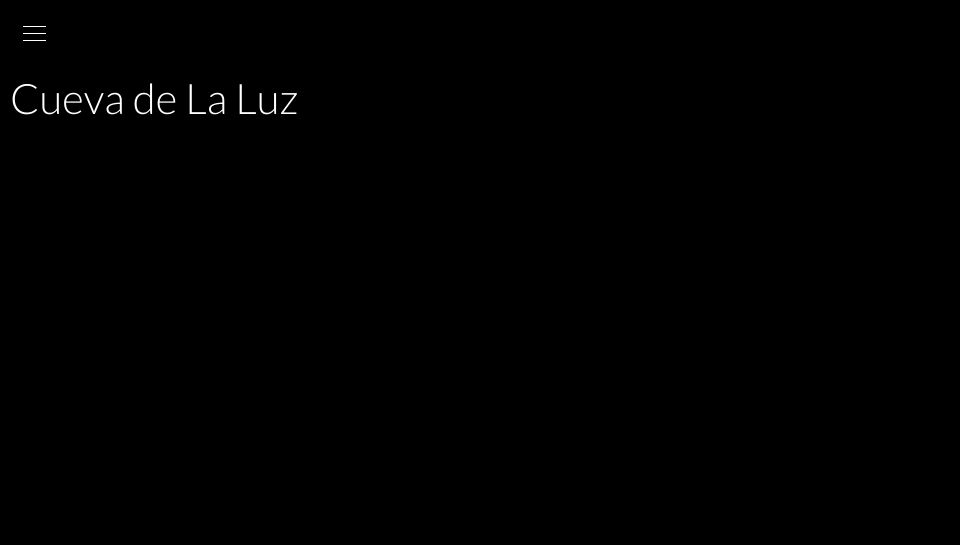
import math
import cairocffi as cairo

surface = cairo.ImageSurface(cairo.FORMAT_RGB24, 960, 545)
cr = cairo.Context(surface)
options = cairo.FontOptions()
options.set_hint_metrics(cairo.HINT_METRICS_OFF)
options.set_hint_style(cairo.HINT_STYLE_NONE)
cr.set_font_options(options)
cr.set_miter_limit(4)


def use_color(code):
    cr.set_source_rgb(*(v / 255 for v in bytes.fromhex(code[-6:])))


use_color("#000000")
cr.paint()
use_color("#ffffff")
cr.rectangle(23, 33, 23, 1)
cr.fill()
cr.rectangle(23, 26, 23, 1)
cr.fill()
cr.rectangle(23, 40, 23, 1)
cr.fill()
cr.select_font_face("Lato Light")
cr.set_font_size(42)
cr.move_to(10, 114)
cr.show_text("Cueva de La Luz")
surface.write_to_png("result.png")
